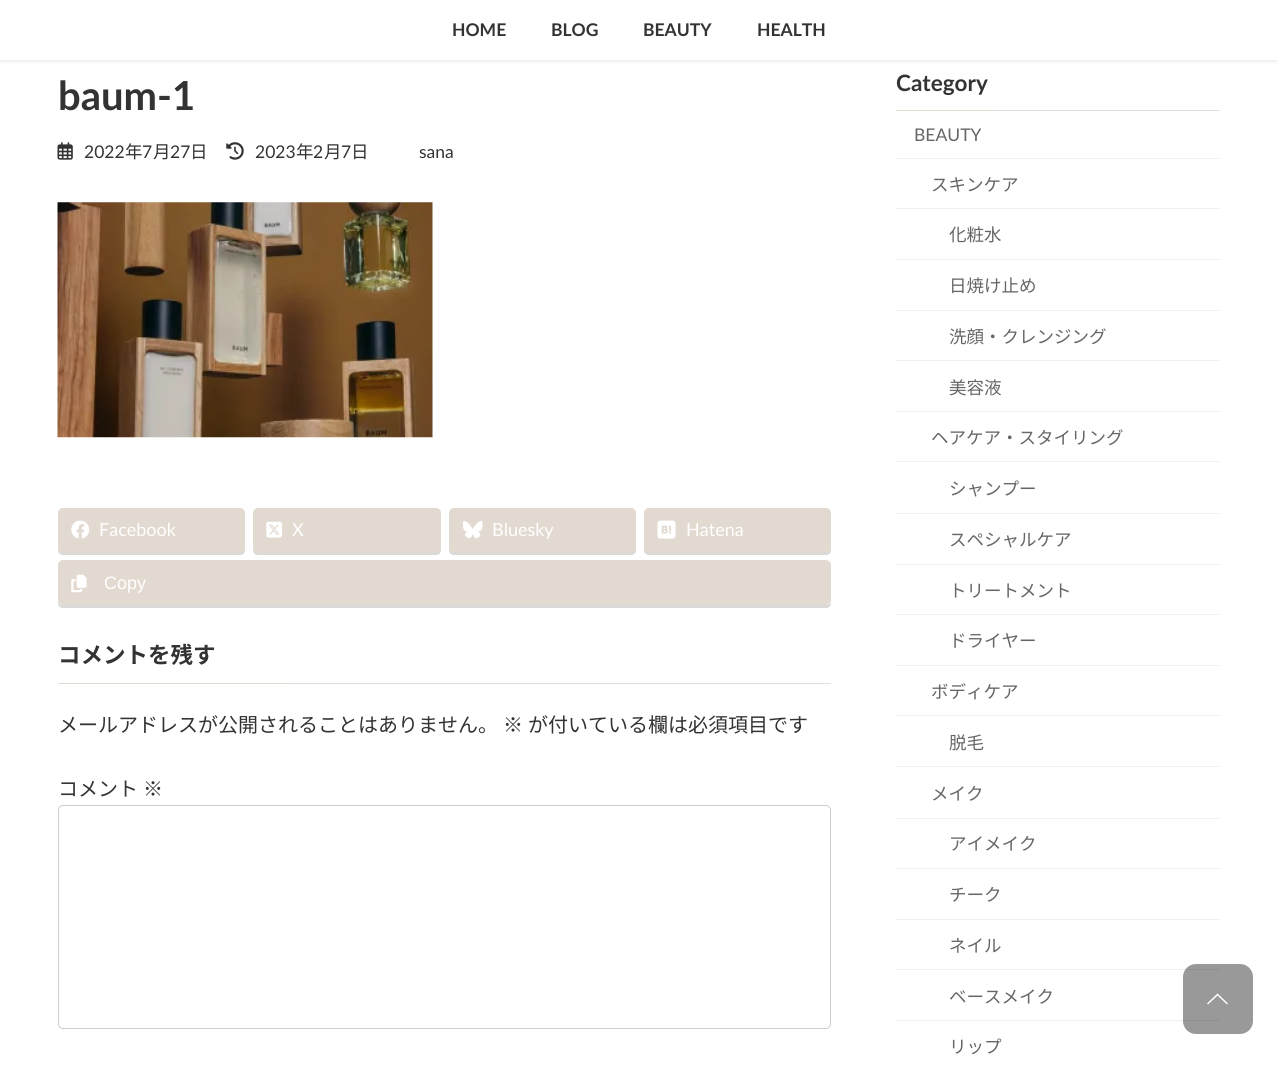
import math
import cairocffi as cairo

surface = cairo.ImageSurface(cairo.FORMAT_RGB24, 1277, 1066)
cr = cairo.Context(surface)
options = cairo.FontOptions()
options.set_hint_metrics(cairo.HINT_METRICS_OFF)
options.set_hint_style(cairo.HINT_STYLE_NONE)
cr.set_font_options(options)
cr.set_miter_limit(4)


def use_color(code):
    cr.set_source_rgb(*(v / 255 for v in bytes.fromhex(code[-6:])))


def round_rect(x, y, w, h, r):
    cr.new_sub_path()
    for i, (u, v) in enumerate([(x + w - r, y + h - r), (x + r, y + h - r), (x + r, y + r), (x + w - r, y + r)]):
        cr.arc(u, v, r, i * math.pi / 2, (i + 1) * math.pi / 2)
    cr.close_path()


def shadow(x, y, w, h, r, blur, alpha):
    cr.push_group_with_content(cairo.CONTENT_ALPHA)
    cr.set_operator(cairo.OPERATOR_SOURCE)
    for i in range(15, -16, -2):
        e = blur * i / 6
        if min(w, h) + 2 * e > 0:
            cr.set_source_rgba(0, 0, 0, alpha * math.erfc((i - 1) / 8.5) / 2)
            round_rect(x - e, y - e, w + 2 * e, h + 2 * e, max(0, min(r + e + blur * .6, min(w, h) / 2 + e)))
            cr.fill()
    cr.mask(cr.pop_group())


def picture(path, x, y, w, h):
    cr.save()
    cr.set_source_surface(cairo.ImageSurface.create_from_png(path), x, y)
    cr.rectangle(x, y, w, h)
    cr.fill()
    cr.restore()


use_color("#ffffff")
cr.paint()
use_color("#000000")
shadow(0, 1, 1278, 60, 0, 2, 0.1)
use_color("#ffffff")
cr.rectangle(0, 0, 1277, 60)
cr.fill()
cr.select_font_face("Lato", cairo.FONT_SLANT_NORMAL, cairo.FONT_WEIGHT_BOLD)
cr.set_font_size(17.5)
use_color("#333333")
cr.move_to(452, 36)
cr.show_text("HOME")
cr.move_to(551, 36)
cr.show_text("BLOG")
cr.move_to(643, 36)
cr.show_text("BEAUTY")
cr.move_to(757, 36)
cr.show_text("HEALTH")
cr.set_font_size(40)
cr.move_to(58, 110)
cr.show_text("baum-1")
picture("img1.png", 57, 142, 16, 18)
cr.select_font_face("Lato")
cr.set_font_size(17.5)
cr.move_to(84, 158)
cr.show_text("2022")
cr.select_font_face("Noto Sans JP")
cr.move_to(125, 158)
cr.show_text("年")
cr.select_font_face("Lato")
cr.move_to(142, 158)
cr.show_text("7")
cr.select_font_face("Noto Sans JP")
cr.move_to(153, 158)
cr.show_text("月")
cr.select_font_face("Lato")
cr.move_to(170, 158)
cr.show_text("27")
cr.select_font_face("Noto Sans JP")
cr.move_to(190, 158)
cr.show_text("日")
picture("img2.png", 226, 142, 18, 18)
cr.select_font_face("Lato")
cr.move_to(255, 158)
cr.show_text("2023")
cr.select_font_face("Noto Sans JP")
cr.move_to(296, 158)
cr.show_text("年")
cr.select_font_face("Lato")
cr.move_to(313, 158)
cr.show_text("2")
cr.select_font_face("Noto Sans JP")
cr.move_to(324, 158)
cr.show_text("月")
cr.select_font_face("Lato")
cr.move_to(341, 158)
cr.show_text("7")
cr.select_font_face("Noto Sans JP")
cr.move_to(351, 158)
cr.show_text("日")
cr.select_font_face("Lato")
cr.move_to(419, 158)
cr.show_text("sana")
picture("img3.png", 57, 202, 376, 236)
use_color("#d9d9d9")
cr.new_path()
cr.move_to(58, 550)
cr.curve_to(58, 553, 60, 555, 63, 555)
cr.line_to(240, 555)
cr.curve_to(243, 555, 245, 553, 245, 550)
cr.line_to(245, 548)
cr.curve_to(245, 550, 243, 552, 240, 552)
cr.line_to(62, 552)
cr.curve_to(61, 552, 59, 551, 58, 550)
cr.close_path()
cr.fill()
use_color("#e2d9d0")
round_rect(58.5, 508.5, 186, 44, 4.5)
cr.fill_preserve()
cr.set_line_width(1)
cr.stroke()
picture("img4.png", 71, 520, 19, 19)
cr.set_font_size(18)
use_color("#ffffff")
cr.move_to(99, 536)
cr.show_text("Facebook")
use_color("#d9d9d9")
cr.new_path()
cr.move_to(253, 550)
cr.curve_to(253, 553, 255, 555, 258, 555)
cr.line_to(436, 555)
cr.curve_to(439, 555, 441, 553, 441, 550)
cr.line_to(441, 549)
cr.curve_to(440, 551, 438, 552, 436, 552)
cr.line_to(258, 552)
cr.curve_to(256, 552, 254, 551, 253, 550)
cr.close_path()
cr.fill()
use_color("#e2d9d0")
round_rect(253.5, 508.5, 187, 44, 4.5)
cr.fill_preserve()
cr.stroke()
picture("img5.png", 266, 521, 16, 17)
use_color("#ffffff")
cr.move_to(292, 536)
cr.show_text("X")
use_color("#d9d9d9")
cr.new_path()
cr.move_to(449, 549)
cr.line_to(449, 550)
cr.curve_to(449, 553, 451, 555, 454, 555)
cr.line_to(631, 555)
cr.curve_to(634, 555, 636, 553, 636, 550)
cr.line_to(636, 549)
cr.curve_to(635, 551, 633, 552, 631, 552)
cr.line_to(454, 552)
cr.curve_to(452, 552, 450, 551, 449, 549)
cr.close_path()
cr.fill()
use_color("#e2d9d0")
round_rect(449.5, 508.5, 186, 44, 4.5)
cr.fill_preserve()
cr.stroke()
picture("img6.png", 462, 521, 21, 18)
use_color("#ffffff")
cr.move_to(492, 536)
cr.show_text("Bluesky")
use_color("#d9d9d9")
cr.new_path()
cr.move_to(644, 549)
cr.line_to(644, 550)
cr.curve_to(644, 553, 646, 555, 649, 555)
cr.line_to(826, 555)
cr.curve_to(829, 555, 831, 553, 831, 550)
cr.line_to(831, 549)
cr.curve_to(830, 551, 828, 552, 826, 552)
cr.line_to(649, 552)
cr.curve_to(647, 552, 645, 551, 644, 549)
cr.close_path()
cr.fill()
use_color("#e2d9d0")
round_rect(644.5, 508.5, 186, 44, 4.5)
cr.fill_preserve()
cr.stroke()
picture("img7.png", 657, 520, 19, 19)
use_color("#ffffff")
cr.move_to(686, 536)
cr.show_text("Hatena")
use_color("#d9d9d9")
cr.new_path()
cr.move_to(58, 602)
cr.line_to(58, 603)
cr.curve_to(58, 606, 60, 608, 63, 608)
cr.line_to(826, 608)
cr.curve_to(829, 608, 831, 606, 831, 603)
cr.line_to(831, 602)
cr.curve_to(830, 604, 828, 605, 826, 605)
cr.line_to(62, 605)
cr.curve_to(61, 605, 59, 604, 58, 602)
cr.close_path()
cr.fill()
use_color("#e2d9d0")
round_rect(58.5, 560.5, 772, 44, 4.5)
cr.fill_preserve()
cr.stroke()
picture("img8.png", 71, 574, 16, 19)
cr.select_font_face("Liberation Sans")
use_color("#ffffff")
cr.move_to(104, 589)
cr.show_text("Copy")
use_color("#e0e0e0")
cr.rectangle(290, 683, 541, 1)
cr.fill()
cr.select_font_face("Noto Sans JP", cairo.FONT_SLANT_NORMAL, cairo.FONT_WEIGHT_BOLD)
cr.set_font_size(22.5)
use_color("#333333")
cr.move_to(58, 663)
cr.show_text("コメントを残す")
use_color("#e2d9d0")
cr.rectangle(58, 683, 232, 1)
cr.fill()
cr.select_font_face("Noto Sans JP")
cr.set_font_size(20)
use_color("#333333")
cr.move_to(58, 732)
cr.show_text("メールアドレスが公開されることはありません。")
cr.move_to(503, 732)
cr.show_text("※")
cr.move_to(528, 732)
cr.show_text("が付いている欄は必須項目です")
cr.move_to(58, 796)
cr.show_text("コメント")
cr.move_to(143, 796)
cr.show_text("※")
round_rect(58.5, 805.5, 772, 223, 4.5)
use_color("#cccccc")
cr.stroke()
use_color("#e0e0e0")
cr.rectangle(994, 110, 226, 1)
cr.fill()
cr.select_font_face("Lato", cairo.FONT_SLANT_NORMAL, cairo.FONT_WEIGHT_BOLD)
cr.set_font_size(22.5)
use_color("#333333")
cr.move_to(896, 91)
cr.show_text("Category")
use_color("#e2d9d0")
cr.rectangle(896, 110, 98, 1)
cr.fill()
use_color("#f0f0f0")
cr.rectangle(896, 158, 324, 1)
cr.fill()
cr.select_font_face("Lato")
cr.set_font_size(17.5)
use_color("#666666")
cr.move_to(914, 141)
cr.show_text("BEAUTY")
use_color("#f0f0f0")
cr.rectangle(896, 208, 324, 1)
cr.fill()
cr.select_font_face("Noto Sans JP")
use_color("#666666")
cr.move_to(931, 191)
cr.show_text("スキンケア")
use_color("#f0f0f0")
cr.rectangle(896, 259, 324, 1)
cr.fill()
use_color("#666666")
cr.move_to(949, 241)
cr.show_text("化粧水")
use_color("#f0f0f0")
cr.rectangle(896, 310, 324, 1)
cr.fill()
use_color("#666666")
cr.move_to(949, 292)
cr.show_text("日焼け止め")
use_color("#f0f0f0")
cr.rectangle(896, 360, 324, 1)
cr.fill()
use_color("#666666")
cr.move_to(949, 343)
cr.show_text("洗顔・クレンジング")
use_color("#f0f0f0")
cr.rectangle(896, 411, 324, 1)
cr.fill()
use_color("#666666")
cr.move_to(949, 394)
cr.show_text("美容液")
use_color("#f0f0f0")
cr.rectangle(896, 461, 324, 1)
cr.fill()
use_color("#666666")
cr.move_to(931, 444)
cr.show_text("ヘアケア・スタイリング")
use_color("#f0f0f0")
cr.rectangle(896, 513, 324, 1)
cr.fill()
use_color("#666666")
cr.move_to(949, 495)
cr.show_text("シャンプー")
use_color("#f0f0f0")
cr.rectangle(896, 564, 324, 1)
cr.fill()
use_color("#666666")
cr.move_to(949, 546)
cr.show_text("スペシャルケア")
use_color("#f0f0f0")
cr.rectangle(896, 614, 324, 1)
cr.fill()
use_color("#666666")
cr.move_to(949, 597)
cr.show_text("トリートメント")
use_color("#f0f0f0")
cr.rectangle(896, 665, 324, 1)
cr.fill()
use_color("#666666")
cr.move_to(949, 647)
cr.show_text("ドライヤー")
use_color("#f0f0f0")
cr.rectangle(896, 715, 324, 1)
cr.fill()
use_color("#666666")
cr.move_to(931, 698)
cr.show_text("ボディケア")
use_color("#f0f0f0")
cr.rectangle(896, 766, 324, 1)
cr.fill()
use_color("#666666")
cr.move_to(949, 749)
cr.show_text("脱毛")
use_color("#f0f0f0")
cr.rectangle(896, 818, 324, 1)
cr.fill()
use_color("#666666")
cr.move_to(931, 800)
cr.show_text("メイク")
use_color("#f0f0f0")
cr.rectangle(896, 868, 324, 1)
cr.fill()
use_color("#666666")
cr.move_to(949, 850)
cr.show_text("アイメイク")
use_color("#f0f0f0")
cr.rectangle(896, 919, 324, 1)
cr.fill()
use_color("#666666")
cr.move_to(949, 901)
cr.show_text("チーク")
use_color("#f0f0f0")
cr.rectangle(896, 969, 324, 1)
cr.fill()
use_color("#666666")
cr.move_to(949, 952)
cr.show_text("ネイル")
use_color("#f0f0f0")
cr.rectangle(896, 1020, 324, 1)
cr.fill()
use_color("#666666")
cr.move_to(949, 1003)
cr.show_text("ベースメイク")
cr.move_to(949, 1053)
cr.show_text("リップ")
cr.set_source_rgba(0, 0, 0, 0.4)
round_rect(1183, 964, 70, 70, 13)
cr.fill()
use_color("#ffffff")
cr.new_path()
cr.move_to(1228, 1003.5)
cr.line_to(1227, 1004.5)
cr.line_to(1217.5, 995.5)
cr.line_to(1208, 1004.5)
cr.line_to(1207, 1003.5)
cr.line_to(1217.5, 993.5)
cr.close_path()
cr.fill()
surface.write_to_png("result.png")
